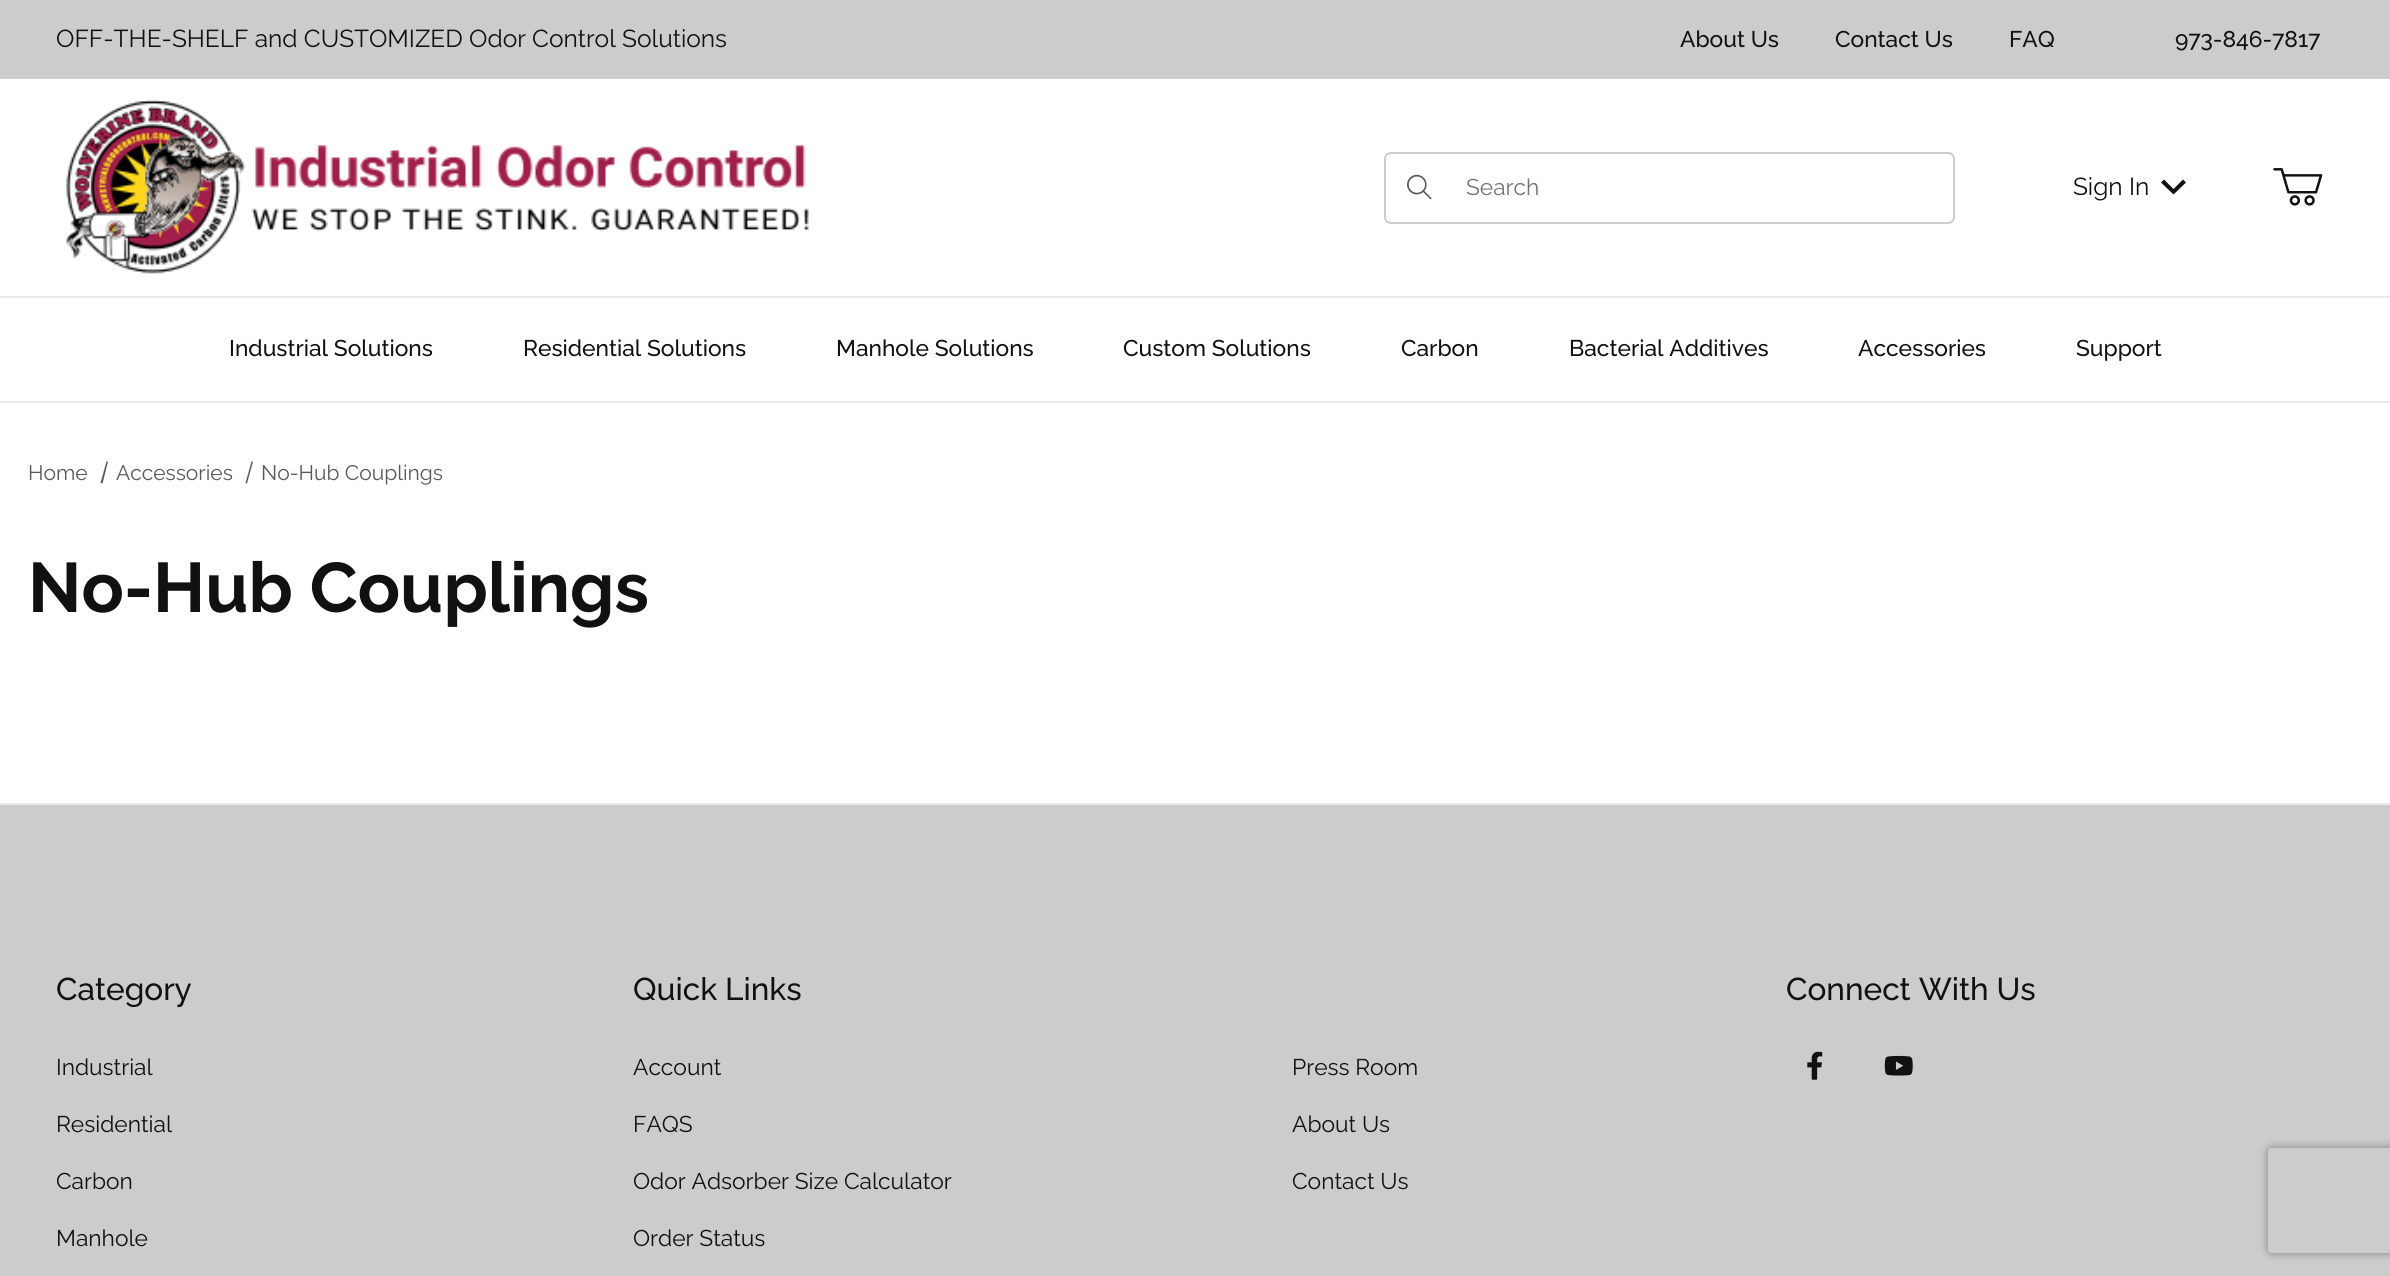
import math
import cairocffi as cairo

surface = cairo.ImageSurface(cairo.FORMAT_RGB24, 2390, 1276)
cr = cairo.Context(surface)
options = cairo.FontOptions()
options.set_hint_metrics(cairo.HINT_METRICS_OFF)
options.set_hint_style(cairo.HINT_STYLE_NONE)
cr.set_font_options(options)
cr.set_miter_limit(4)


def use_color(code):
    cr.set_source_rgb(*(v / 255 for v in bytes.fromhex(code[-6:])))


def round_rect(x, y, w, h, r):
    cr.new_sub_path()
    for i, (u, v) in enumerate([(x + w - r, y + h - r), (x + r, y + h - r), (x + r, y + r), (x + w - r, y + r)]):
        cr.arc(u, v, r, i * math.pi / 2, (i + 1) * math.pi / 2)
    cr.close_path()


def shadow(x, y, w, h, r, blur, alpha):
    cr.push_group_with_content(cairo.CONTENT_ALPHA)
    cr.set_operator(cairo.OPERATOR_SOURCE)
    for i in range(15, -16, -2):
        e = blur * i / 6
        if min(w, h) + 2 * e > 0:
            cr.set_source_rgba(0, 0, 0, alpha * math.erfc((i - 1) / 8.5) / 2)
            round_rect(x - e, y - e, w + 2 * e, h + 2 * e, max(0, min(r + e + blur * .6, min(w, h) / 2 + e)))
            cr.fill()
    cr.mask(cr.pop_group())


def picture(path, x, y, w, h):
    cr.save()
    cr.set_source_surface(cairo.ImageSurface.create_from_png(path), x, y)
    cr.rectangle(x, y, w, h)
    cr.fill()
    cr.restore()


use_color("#ffffff")
cr.paint()
use_color("#eaeaea")
cr.rectangle(0, 296, 2390, 2)
cr.fill()
use_color("#cccccc")
cr.rectangle(0, 0, 2390, 79)
cr.fill()
cr.select_font_face("Raleway")
cr.set_font_size(24.5)
use_color("#111111")
cr.move_to(56, 47)
cr.show_text("OFF-THE-SHELF and CUSTOMIZED Odor Control Solutions")
cr.select_font_face("Raleway Medium")
cr.set_font_size(22.75)
cr.move_to(1680, 47)
cr.show_text("About Us")
cr.move_to(1835, 47)
cr.show_text("Contact Us")
cr.move_to(2009, 47)
cr.show_text("FAQ")
cr.move_to(2175, 47)
cr.show_text("973-846-7817")
picture("img1.png", 66, 99, 743, 175)
round_rect(1385, 153, 569, 70, 6)
use_color("#cccccc")
cr.stroke()
picture("img2.png", 1407, 174, 25, 26)
cr.select_font_face("Raleway")
use_color("#757575")
cr.move_to(1466, 195)
cr.show_text("Search")
cr.set_font_size(24.5)
use_color("#111111")
cr.move_to(2073, 195)
cr.show_text("Sign In")
cr.new_path()
cr.move_to(2164, 179.5)
cr.line_to(2161, 182.5)
cr.line_to(2173.5, 194.5)
cr.line_to(2186, 182.5)
cr.line_to(2183, 179.5)
cr.line_to(2173.5, 189)
cr.close_path()
cr.fill()
picture("img3.png", 2273, 168, 50, 38)
use_color("#eaeaea")
cr.rectangle(0, 401, 2390, 2)
cr.fill()
cr.select_font_face("Raleway Medium")
cr.set_font_size(22.75)
use_color("#111111")
cr.move_to(229, 356)
cr.show_text("Industrial Solutions")
cr.move_to(523, 356)
cr.show_text("Residential Solutions")
cr.move_to(836, 356)
cr.show_text("Manhole Solutions")
cr.move_to(1123, 356)
cr.show_text("Custom Solutions")
cr.move_to(1401, 356)
cr.show_text("Carbon")
cr.move_to(1569, 356)
cr.show_text("Bacterial Additives")
cr.move_to(1858, 356)
cr.show_text("Accessories")
cr.move_to(2076, 356)
cr.show_text("Support")
cr.select_font_face("Raleway")
cr.set_font_size(21)
use_color("#575a5d")
cr.move_to(28, 480)
cr.show_text("Home")
cr.new_path()
cr.move_to(106.5, 461.5)
cr.line_to(108, 461.5)
cr.line_to(102.5, 483.5)
cr.line_to(100.5, 483)
cr.close_path()
cr.fill()
cr.move_to(116, 480)
cr.show_text("Accessories")
cr.new_path()
cr.move_to(251.5, 461.5)
cr.line_to(253, 461.5)
cr.line_to(247, 483.5)
cr.line_to(245.5, 483)
cr.close_path()
cr.fill()
cr.move_to(261, 480)
cr.show_text("No-Hub Couplings")
cr.select_font_face("Raleway", cairo.FONT_SLANT_NORMAL, cairo.FONT_WEIGHT_BOLD)
cr.set_font_size(70)
use_color("#111111")
cr.move_to(28, 612)
cr.show_text("No-Hub Couplings")
use_color("#cccccc")
cr.rectangle(0, 805, 2390, 471)
cr.fill()
use_color("#eaeaea")
cr.rectangle(0, 803, 2390, 2)
cr.fill()
cr.select_font_face("Raleway Medium")
cr.set_font_size(31.5)
use_color("#111111")
cr.move_to(56, 1000)
cr.show_text("Category")
cr.select_font_face("Raleway")
cr.set_font_size(22.75)
cr.move_to(56, 1075)
cr.show_text("Industrial")
cr.move_to(56, 1132)
cr.show_text("Residential")
cr.move_to(56, 1189)
cr.show_text("Carbon")
cr.move_to(56, 1246)
cr.show_text("Manhole")
cr.select_font_face("Raleway Medium")
cr.set_font_size(31.5)
cr.move_to(633, 1000)
cr.show_text("Quick Links")
cr.select_font_face("Raleway")
cr.set_font_size(22.75)
cr.move_to(633, 1075)
cr.show_text("Account")
cr.move_to(1292, 1075)
cr.show_text("Press Room")
cr.move_to(633, 1132)
cr.show_text("FAQS")
cr.move_to(1292, 1132)
cr.show_text("About Us")
cr.move_to(633, 1189)
cr.show_text("Odor Adsorber Size Calculator")
cr.move_to(1292, 1189)
cr.show_text("Contact Us")
cr.move_to(633, 1246)
cr.show_text("Order Status")
cr.select_font_face("Raleway Medium")
cr.set_font_size(31.5)
cr.move_to(1786, 1000)
cr.show_text("Connect With Us")
picture("img4.png", 1807, 1051, 16, 29)
picture("img5.png", 1884, 1055, 29, 21)
cr.save()
cr.set_fill_rule(cairo.FILL_RULE_EVEN_ODD)
cr.new_path()
cr.move_to(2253, 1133)
cr.line_to(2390, 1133)
cr.line_to(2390, 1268)
cr.line_to(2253, 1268)
cr.close_path()
cr.move_to(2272, 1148)
cr.line_to(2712, 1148)
cr.curve_to(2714, 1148, 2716, 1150, 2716, 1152)
cr.line_to(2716, 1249)
cr.curve_to(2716, 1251, 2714, 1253, 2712, 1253)
cr.line_to(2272, 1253)
cr.curve_to(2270, 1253, 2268, 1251, 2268, 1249)
cr.line_to(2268, 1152)
cr.curve_to(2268, 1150, 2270, 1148, 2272, 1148)
cr.close_path()
cr.clip()
use_color("#808080")
shadow(2268, 1148, 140, 105, 4, 4.5, 1)
cr.restore()
surface.write_to_png("result.png")
